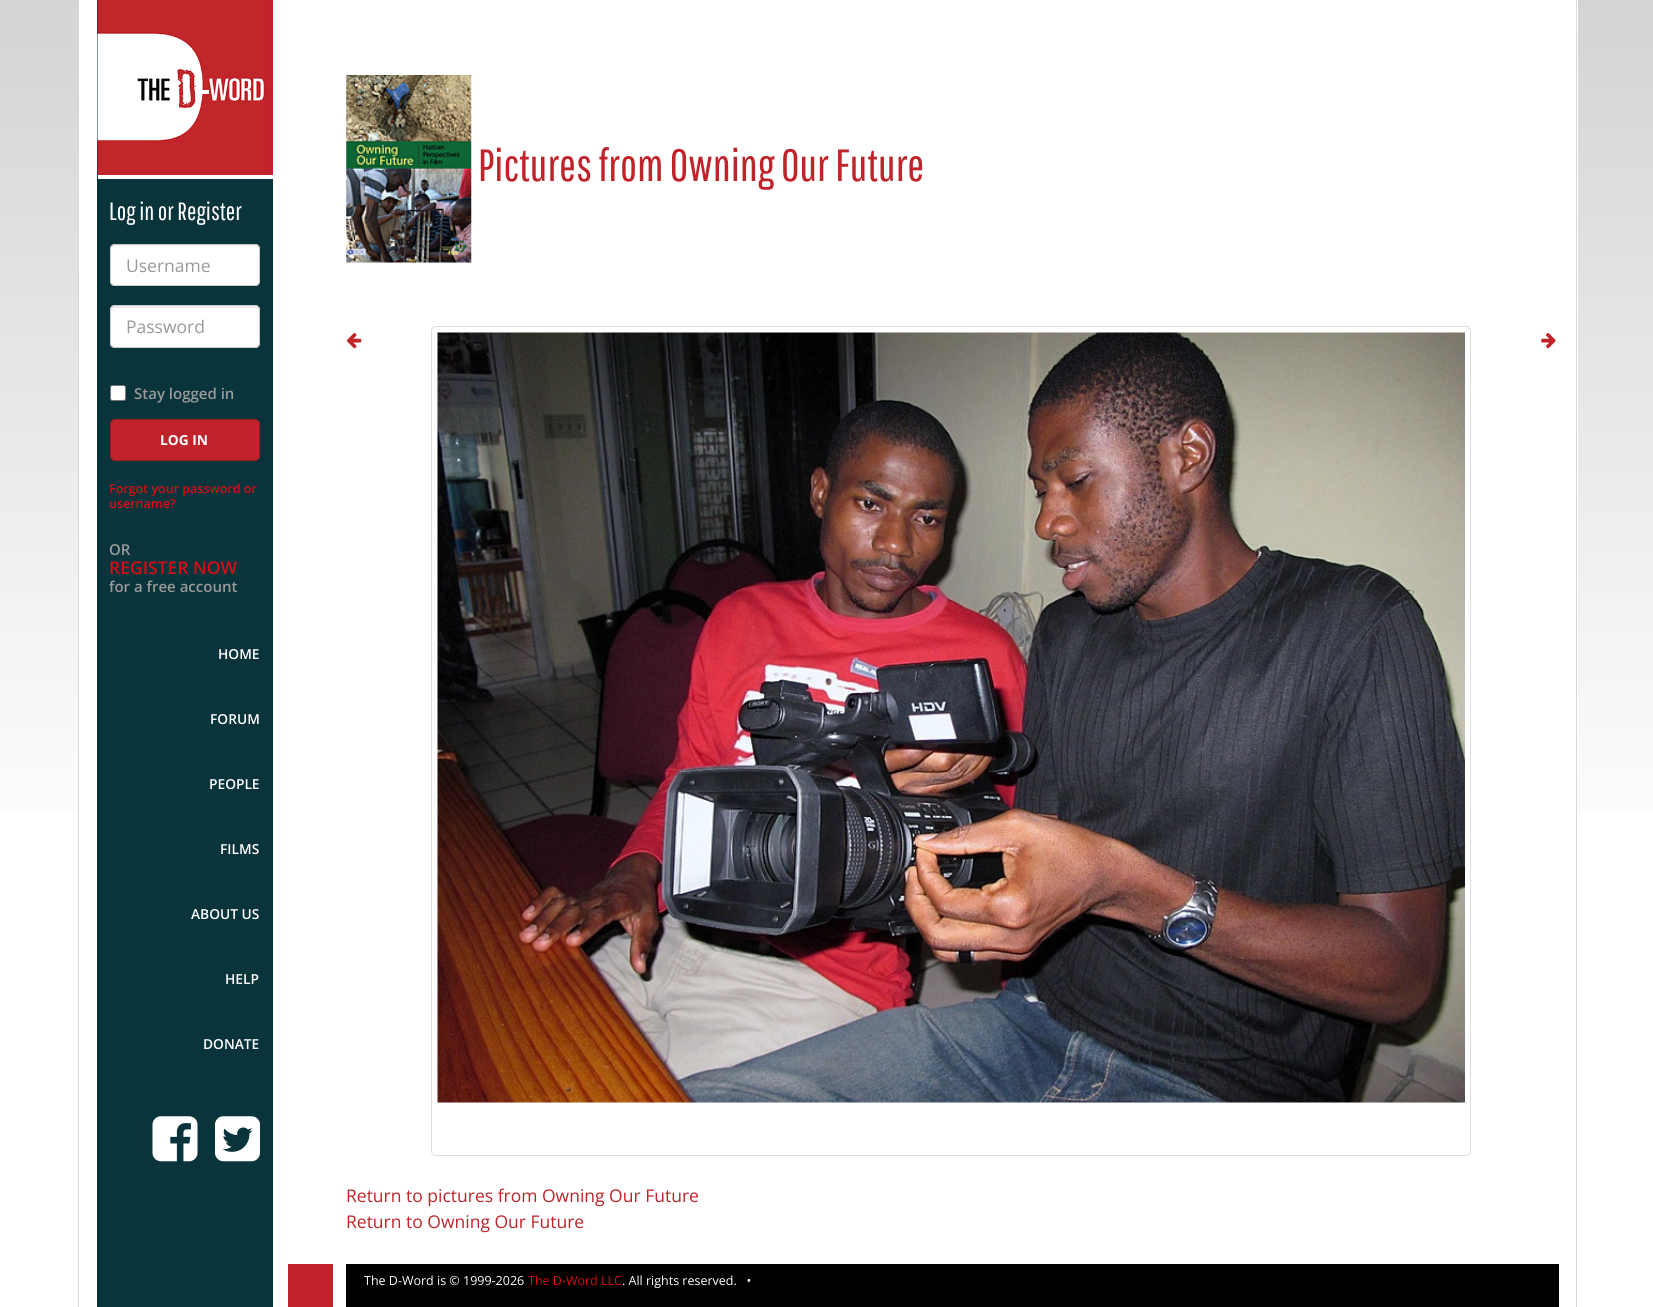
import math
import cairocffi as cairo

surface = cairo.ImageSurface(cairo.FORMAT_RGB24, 1653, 1307)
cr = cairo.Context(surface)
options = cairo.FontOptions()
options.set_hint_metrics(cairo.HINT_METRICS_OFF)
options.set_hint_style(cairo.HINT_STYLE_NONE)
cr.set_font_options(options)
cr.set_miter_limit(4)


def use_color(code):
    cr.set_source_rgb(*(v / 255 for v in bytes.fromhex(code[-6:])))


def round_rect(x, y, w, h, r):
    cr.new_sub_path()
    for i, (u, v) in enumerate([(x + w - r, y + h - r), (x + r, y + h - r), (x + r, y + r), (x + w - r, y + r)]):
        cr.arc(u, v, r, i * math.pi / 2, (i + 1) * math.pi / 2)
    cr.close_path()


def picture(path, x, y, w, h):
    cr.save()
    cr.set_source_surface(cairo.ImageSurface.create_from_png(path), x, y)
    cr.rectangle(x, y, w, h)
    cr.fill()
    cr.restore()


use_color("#ffffff")
cr.paint()
gradient = cairo.LinearGradient(827, 0, 827, 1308)
gradient.add_color_stop_rgba(0, 0.831, 0.831, 0.831, 1)
gradient.add_color_stop_rgba(0.66, 1, 1, 1, 1)
cr.set_source(gradient)
cr.rectangle(0, 0, 1653, 813)
cr.fill()
use_color("#ffffff")
cr.rectangle(79, 0, 1499, 813)
cr.fill()
use_color("#09343c")
cr.rectangle(97, 0, 176, 1307)
cr.fill()
use_color("#d9d9d9")
cr.rectangle(1576, 0, 1, 1307)
cr.fill()
cr.rectangle(78, 0, 1, 1307)
cr.fill()
use_color("#c02329")
cr.rectangle(265, 0, 8, 175)
cr.fill()
use_color("#ffffff")
cr.rectangle(98, 175, 175, 4)
cr.fill()
picture("img1.png", 97, 0, 168, 175)
cr.select_font_face("Pathway Gothic One")
cr.set_font_size(25)
cr.move_to(109, 220)
cr.show_text("Log in or Register")
round_rect(110, 244, 150, 42, 5)
cr.fill()
use_color("#ececec")
cr.new_path()
cr.move_to(115, 246)
cr.line_to(255, 246)
cr.curve_to(257, 246, 259, 248, 259, 250)
cr.curve_to(259, 248, 258, 246, 256, 245)
cr.line_to(115, 245)
cr.curve_to(112, 245, 111, 247, 111, 250)
cr.curve_to(111, 248, 113, 246, 115, 246)
cr.close_path()
cr.fill()
round_rect(110.5, 244.5, 149, 41, 4.5)
use_color("#cccccc")
cr.set_line_width(1)
cr.stroke()
cr.select_font_face("Open Sans")
cr.set_font_size(17.5)
use_color("#999999")
cr.move_to(126, 272)
cr.show_text("Username")
use_color("#ffffff")
round_rect(110, 305, 150, 43, 5)
cr.fill()
use_color("#ececec")
cr.new_path()
cr.move_to(115, 308)
cr.line_to(255, 308)
cr.curve_to(257, 308, 259, 309, 259, 311)
cr.curve_to(259, 309, 258, 307, 256, 306)
cr.line_to(115, 306)
cr.curve_to(112, 306, 111, 308, 111, 311)
cr.curve_to(111, 309, 113, 308, 115, 308)
cr.close_path()
cr.fill()
round_rect(110.5, 305.5, 149, 42, 4.5)
use_color("#cccccc")
cr.stroke()
use_color("#999999")
cr.move_to(126, 333)
cr.show_text("Password")
use_color("#ffffff")
round_rect(110.5, 385.5, 15, 15, 2)
cr.fill_preserve()
use_color("#767676")
cr.stroke()
cr.select_font_face("Open Sans SemiBold")
cr.set_font_size(15)
use_color("#999999")
cr.move_to(134, 399)
cr.show_text("Stay logged in")
use_color("#c02329")
round_rect(110.5, 419.5, 149, 41, 4.5)
cr.fill_preserve()
use_color("#951b20")
cr.stroke()
cr.select_font_face("Open Sans", cairo.FONT_SLANT_NORMAL, cairo.FONT_WEIGHT_BOLD)
cr.set_font_size(13.75)
use_color("#ffffff")
cr.move_to(160, 445)
cr.show_text("LOG IN")
cr.select_font_face("Open Sans SemiBold")
cr.set_font_size(12.5)
use_color("#d70c14")
cr.move_to(109, 493)
cr.show_text("Forgot your password or")
cr.move_to(109, 508)
cr.show_text("username?")
cr.set_font_size(15)
use_color("#999999")
cr.move_to(109, 555)
cr.show_text("OR")
cr.set_font_size(17.5)
use_color("#d70c14")
cr.move_to(109, 574)
cr.show_text("REGISTER NOW")
cr.set_font_size(15)
use_color("#999999")
cr.move_to(109, 592)
cr.show_text("for a free account")
cr.set_font_size(13.75)
use_color("#ffffff")
cr.move_to(218, 659)
cr.show_text("HOME")
cr.move_to(210, 724)
cr.show_text("FORUM")
cr.move_to(209, 789)
cr.show_text("PEOPLE")
cr.move_to(220, 854)
cr.show_text("FILMS")
cr.move_to(191, 919)
cr.show_text("ABOUT US")
cr.move_to(225, 984)
cr.show_text("HELP")
cr.move_to(203, 1049)
cr.show_text("DONATE")
picture("img2.png", 152, 1116, 46, 46)
picture("img3.png", 215, 1116, 45, 46)
picture("img4.png", 346, 75, 126, 188)
cr.select_font_face("Pathway Gothic One")
cr.set_font_size(45)
use_color("#c02329")
cr.move_to(478, 181)
cr.show_text("Pictures from Owning Our Future")
picture("img5.png", 346, 333, 16, 16)
round_rect(431.5, 326.5, 1039, 829, 4.5)
use_color("#dddddd")
cr.stroke()
picture("img6.png", 437, 332, 1028, 771)
picture("img7.png", 1541, 333, 15, 16)
cr.select_font_face("Open Sans")
cr.set_font_size(17.5)
use_color("#c02329")
cr.move_to(346, 1202)
cr.show_text("Return to pictures from Owning Our Future")
cr.move_to(346, 1228)
cr.show_text("Return to Owning Our Future")
use_color("#000000")
cr.rectangle(346, 1264, 1213, 43)
cr.fill()
use_color("#c02329")
cr.rectangle(288, 1264, 45, 43)
cr.fill()
cr.set_font_size(12.5)
use_color("#ffffff")
cr.move_to(364, 1285)
cr.show_text("The D-Word is © 1999-2026")
use_color("#d70c14")
cr.move_to(528, 1285)
cr.show_text("The D-Word LLC")
use_color("#ffffff")
cr.move_to(622, 1285)
cr.show_text(". All rights reserved.   •")
surface.write_to_png("result.png")
